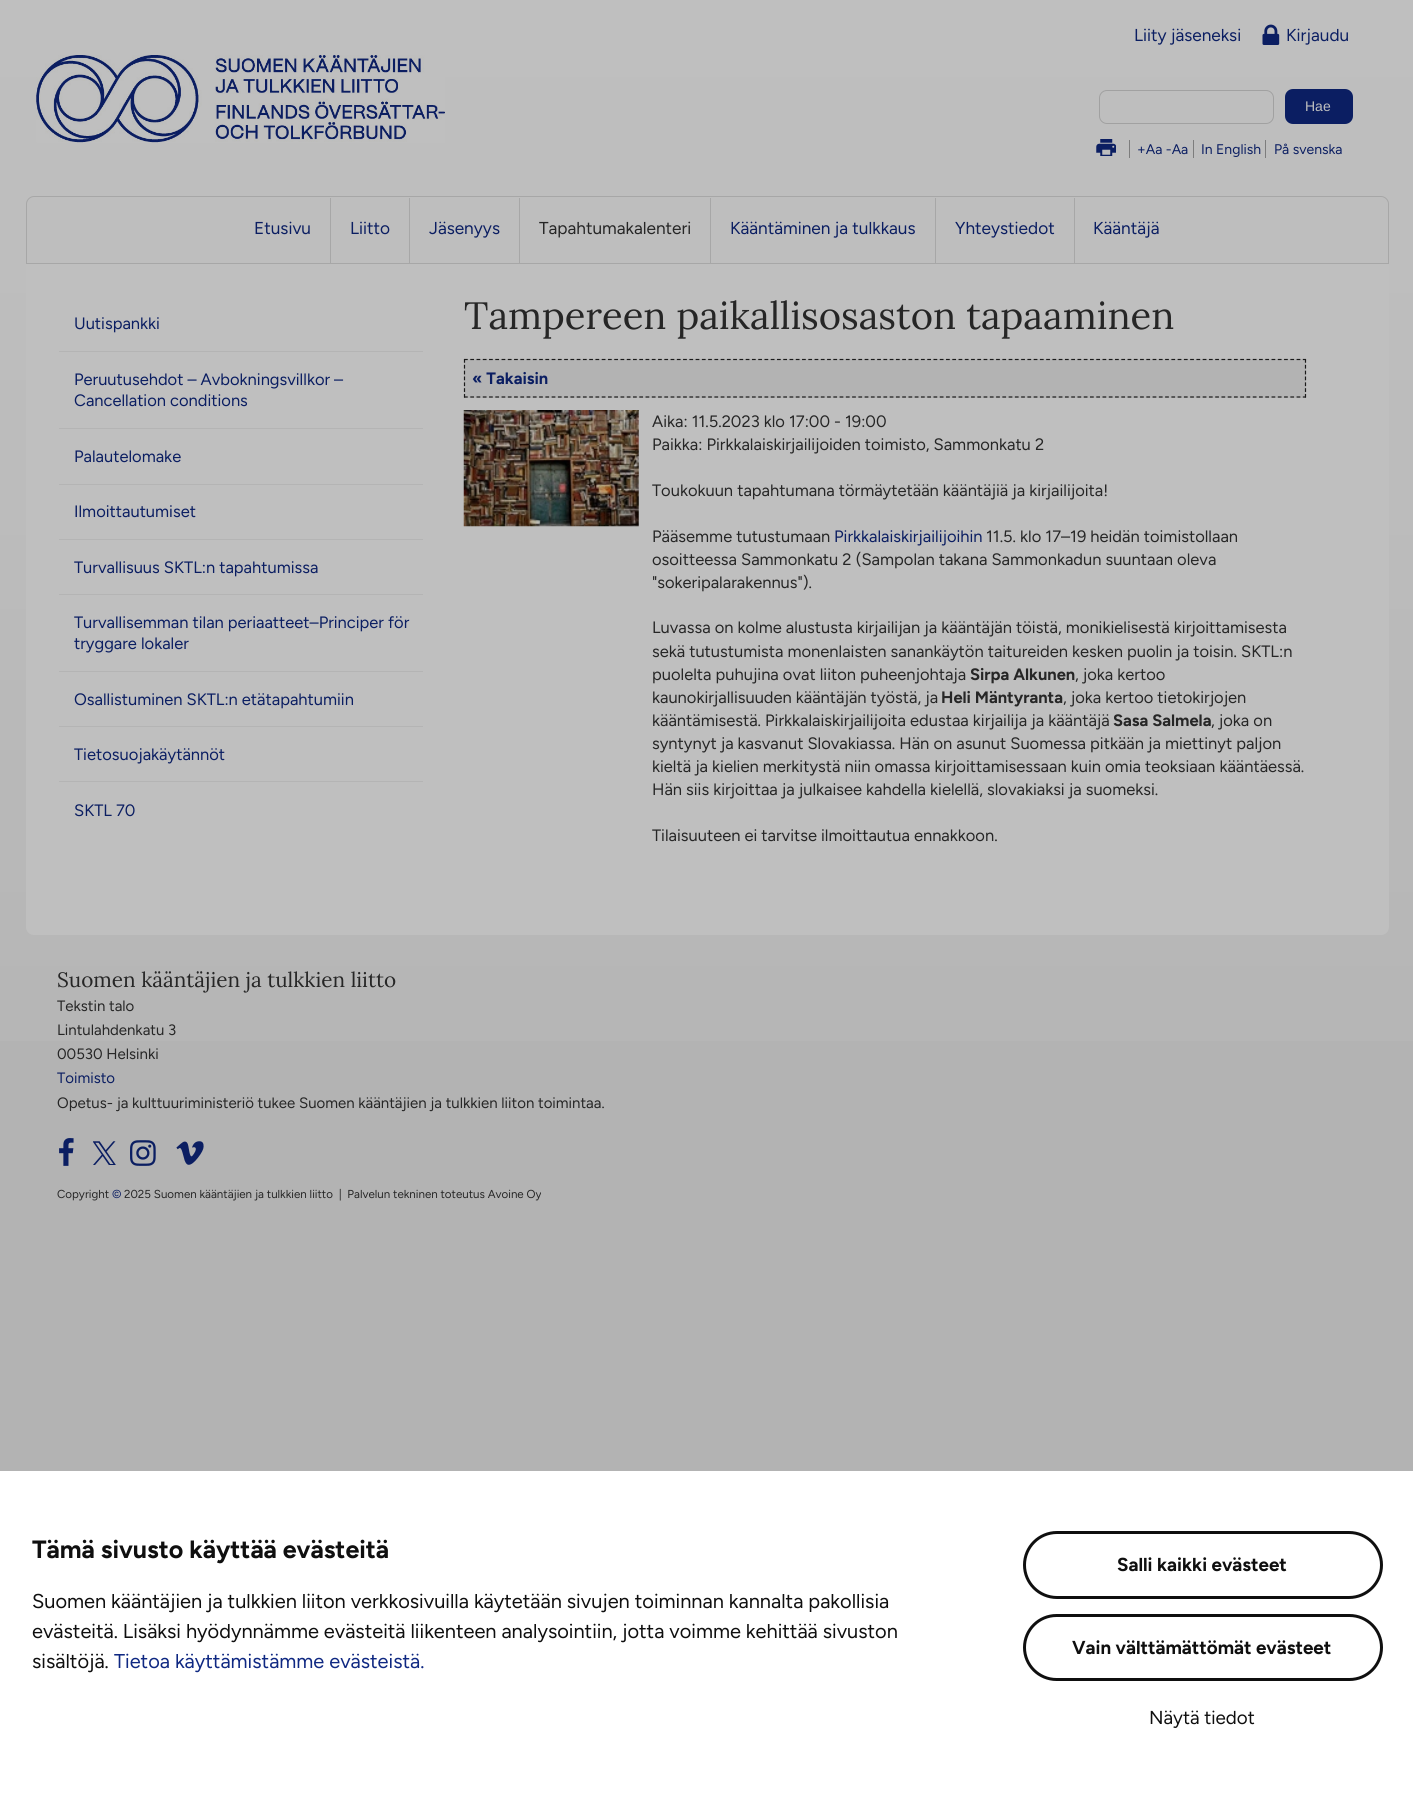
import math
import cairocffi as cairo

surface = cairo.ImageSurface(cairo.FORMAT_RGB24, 1413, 1798)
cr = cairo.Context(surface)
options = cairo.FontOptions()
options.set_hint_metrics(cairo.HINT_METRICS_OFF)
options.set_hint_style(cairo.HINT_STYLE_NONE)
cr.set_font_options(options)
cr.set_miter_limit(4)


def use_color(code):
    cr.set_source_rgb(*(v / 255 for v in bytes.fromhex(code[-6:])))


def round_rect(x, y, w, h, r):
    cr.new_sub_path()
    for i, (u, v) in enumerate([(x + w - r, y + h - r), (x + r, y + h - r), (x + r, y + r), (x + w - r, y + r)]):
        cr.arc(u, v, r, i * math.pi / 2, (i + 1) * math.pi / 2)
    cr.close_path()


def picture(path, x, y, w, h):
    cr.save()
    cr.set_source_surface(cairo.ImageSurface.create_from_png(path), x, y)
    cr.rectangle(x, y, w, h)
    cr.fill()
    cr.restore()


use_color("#b3b3b3")
cr.paint()
picture("img1.png", 0, 0, 1413, 1041)
cr.select_font_face("Figtree")
cr.set_font_size(17.25)
use_color("#0b1e62")
cr.move_to(1134, 41)
cr.show_text("Liity jäseneksi")
picture("img2.png", 1262, 24, 18, 21)
cr.move_to(1286, 41)
cr.show_text("Kirjaudu")
picture("img3.png", 36, 55, 409, 88)
round_rect(1099.5, 90.5, 174, 33, 7.5)
use_color("#a1a1a1")
cr.set_line_width(1)
cr.stroke()
use_color("#0b1e62")
round_rect(1285, 89, 68, 35, 8)
cr.fill()
cr.select_font_face("Liberation Sans")
cr.set_font_size(14)
use_color("#bfbfbf")
cr.move_to(1305, 111)
cr.show_text("Hae")
picture("img4.png", 1096, 139, 20, 17)
cr.select_font_face("Figtree")
use_color("#0b1e62")
cr.move_to(1137, 154)
cr.show_text("+Aa -Aa")
use_color("#7d7d7d")
cr.rectangle(1129, 140, 1, 18)
cr.fill()
use_color("#0b1e62")
cr.move_to(1201, 154)
cr.show_text("In English")
use_color("#7d7d7d")
cr.rectangle(1193, 140, 1, 18)
cr.fill()
use_color("#0b1e62")
cr.move_to(1274, 154)
cr.show_text("På svenska")
use_color("#7d7d7d")
cr.rectangle(1265, 140, 1, 18)
cr.fill()
cr.new_path()
cr.move_to(34, 196.5)
cr.line_to(1381, 196.5)
cr.curve_to(1385, 196.5, 1388.5, 200, 1388.5, 204)
cr.line_to(1388.5, 263.5)
cr.line_to(26.5, 263.5)
cr.line_to(26.5, 204)
cr.curve_to(26.5, 200, 30, 196.5, 34, 196.5)
cr.close_path()
use_color("#a7a7a7")
cr.stroke()
cr.rectangle(330, 198, 1, 65)
cr.fill()
cr.set_font_size(17.25)
use_color("#0b1e62")
cr.move_to(254, 234)
cr.show_text("Etusivu")
use_color("#a7a7a7")
cr.rectangle(409, 198, 1, 65)
cr.fill()
use_color("#0b1e62")
cr.move_to(350, 234)
cr.show_text("Liitto")
use_color("#a7a7a7")
cr.rectangle(519, 198, 1, 65)
cr.fill()
use_color("#0b1e62")
cr.move_to(429, 234)
cr.show_text("Jäsenyys")
use_color("#a7a7a7")
cr.rectangle(710, 198, 1, 65)
cr.fill()
use_color("#262626")
cr.move_to(539, 234)
cr.show_text("Tapahtumakalenteri")
use_color("#a7a7a7")
cr.rectangle(935, 198, 1, 65)
cr.fill()
use_color("#0b1e62")
cr.move_to(730, 234)
cr.show_text("Kääntäminen ja tulkkaus")
use_color("#a7a7a7")
cr.rectangle(1074, 198, 1, 65)
cr.fill()
use_color("#0b1e62")
cr.move_to(955, 234)
cr.show_text("Yhteystiedot")
cr.move_to(1093, 234)
cr.show_text("Kääntäjä")
use_color("#bfbfbf")
cr.new_path()
cr.move_to(26, 264)
cr.line_to(1389, 264)
cr.line_to(1389, 927)
cr.curve_to(1389, 931.5, 1385.5, 935, 1381, 935)
cr.line_to(34, 935)
cr.curve_to(29.5, 935, 26, 931.5, 26, 927)
cr.close_path()
cr.fill()
use_color("#b4b4b4")
cr.rectangle(59, 351, 364, 1)
cr.fill()
cr.set_font_size(16.5)
use_color("#0b1e62")
cr.move_to(74, 329)
cr.show_text("Uutispankki")
use_color("#b4b4b4")
cr.rectangle(59, 428, 364, 1)
cr.fill()
use_color("#0b1e62")
cr.move_to(74, 385)
cr.show_text("Peruutusehdot – Avbokningsvillkor –")
cr.move_to(74, 406)
cr.show_text("Cancellation conditions")
use_color("#b4b4b4")
cr.rectangle(59, 484, 364, 1)
cr.fill()
use_color("#0b1e62")
cr.move_to(74, 462)
cr.show_text("Palautelomake")
use_color("#b4b4b4")
cr.rectangle(59, 539, 364, 1)
cr.fill()
use_color("#0b1e62")
cr.move_to(74, 517)
cr.show_text("Ilmoittautumiset")
use_color("#b4b4b4")
cr.rectangle(59, 594, 364, 1)
cr.fill()
use_color("#0b1e62")
cr.move_to(74, 573)
cr.show_text("Turvallisuus SKTL:n tapahtumissa")
use_color("#b4b4b4")
cr.rectangle(59, 671, 364, 1)
cr.fill()
use_color("#0b1e62")
cr.move_to(74, 628)
cr.show_text("Turvallisemman tilan periaatteet–Principer för")
cr.move_to(74, 649)
cr.show_text("tryggare lokaler")
use_color("#b4b4b4")
cr.rectangle(59, 726, 364, 1)
cr.fill()
use_color("#0b1e62")
cr.move_to(74, 705)
cr.show_text("Osallistuminen SKTL:n etätapahtumiin")
use_color("#b4b4b4")
cr.rectangle(59, 781, 364, 1)
cr.fill()
use_color("#0b1e62")
cr.move_to(74, 760)
cr.show_text("Tietosuojakäytännöt")
cr.move_to(74, 816)
cr.show_text("SKTL 70")
cr.select_font_face("Lora")
cr.set_font_size(38.1)
use_color("#262626")
cr.move_to(464, 329)
cr.show_text("Tampereen paikallisosaston tapaaminen")
use_color("#b3b3b3")
cr.rectangle(464, 359, 842, 39)
cr.fill()
cr.new_path()
cr.move_to(464, 359.5)
cr.line_to(1306, 359.5)
use_color("#1a1a1a")
cr.set_line_width(1.2)
cr.set_dash([3.75, 2.51])
cr.stroke()
cr.new_path()
cr.move_to(1305.5, 359)
cr.line_to(1305.5, 397.5)
cr.set_dash([3.75, 2.09])
cr.stroke()
cr.new_path()
cr.move_to(464, 397)
cr.line_to(1306, 397)
cr.set_dash([3.75, 2.51])
cr.stroke()
cr.new_path()
cr.move_to(464.5, 359)
cr.line_to(464.5, 397.5)
cr.set_dash([3.75, 2.09])
cr.stroke()
cr.select_font_face("Figtree", cairo.FONT_SLANT_NORMAL, cairo.FONT_WEIGHT_BOLD)
cr.set_font_size(16.5)
use_color("#0b1e62")
cr.move_to(472, 384)
cr.show_text("« Takaisin")
picture("img5.png", 463, 410, 176, 117)
cr.select_font_face("Figtree")
use_color("#262626")
cr.move_to(652, 427)
cr.show_text("Aika: 11.5.2023 klo 17:00 - 19:00")
cr.move_to(652, 450)
cr.show_text("Paikka: Pirkkalaiskirjailijoiden toimisto, Sammonkatu 2")
cr.move_to(652, 496)
cr.show_text("Toukokuun tapahtumana törmäytetään kääntäjiä ja kirjailijoita!")
cr.move_to(652, 542)
cr.show_text("Pääsemme tutustumaan")
use_color("#0b1e62")
cr.move_to(834, 542)
cr.show_text("Pirkkalaiskirjailijoihin")
use_color("#262626")
cr.move_to(986, 542)
cr.show_text("11.5. klo 17–19 heidän toimistollaan")
cr.move_to(652, 565)
cr.show_text("osoitteessa Sammonkatu 2 (Sampolan takana Sammonkadun suuntaan oleva")
cr.move_to(652, 588)
cr.show_text("\"sokeripalarakennus\").")
cr.move_to(652, 633)
cr.show_text("Luvassa on kolme alustusta kirjailijan ja kääntäjän töistä, monikielisestä kirjoittamisesta")
cr.move_to(652, 657)
cr.show_text("sekä tutustumista monenlaisten sanankäytön taitureiden kesken puolin ja toisin. SKTL:n")
cr.move_to(652, 680)
cr.show_text("puolelta puhujina ovat liiton puheenjohtaja")
cr.select_font_face("Figtree", cairo.FONT_SLANT_NORMAL, cairo.FONT_WEIGHT_BOLD)
cr.move_to(970, 680)
cr.show_text("Sirpa Alkunen")
cr.select_font_face("Figtree")
cr.move_to(1075, 680)
cr.show_text(", joka kertoo")
cr.move_to(652, 703)
cr.show_text("kaunokirjallisuuden kääntäjän työstä, ja")
cr.select_font_face("Figtree", cairo.FONT_SLANT_NORMAL, cairo.FONT_WEIGHT_BOLD)
cr.move_to(941, 703)
cr.show_text("Heli Mäntyranta")
cr.select_font_face("Figtree")
cr.move_to(1063, 703)
cr.show_text(", joka kertoo tietokirjojen")
cr.move_to(652, 726)
cr.show_text("kääntämisestä. Pirkkalaiskirjailijoita edustaa kirjailija ja kääntäjä")
cr.select_font_face("Figtree", cairo.FONT_SLANT_NORMAL, cairo.FONT_WEIGHT_BOLD)
cr.move_to(1113, 726)
cr.show_text("Sasa Salmela")
cr.select_font_face("Figtree")
cr.move_to(1211, 726)
cr.show_text(", joka on")
cr.move_to(652, 749)
cr.show_text("syntynyt ja kasvanut Slovakiassa. Hän on asunut Suomessa pitkään ja miettinyt paljon")
cr.move_to(652, 772)
cr.show_text("kieltä ja kielien merkitystä niin omassa kirjoittamisessaan kuin omia teoksiaan kääntäessä.")
cr.move_to(652, 795)
cr.show_text("Hän siis kirjoittaa ja julkaisee kahdella kielellä, slovakiaksi ja suomeksi.")
cr.move_to(652, 841)
cr.show_text("Tilaisuuteen ei tarvitse ilmoittautua ennakkoon.")
cr.select_font_face("Lora")
cr.set_font_size(20.75)
cr.move_to(57, 987)
cr.show_text("Suomen kääntäjien ja tulkkien liitto")
cr.select_font_face("Figtree")
cr.set_font_size(15)
cr.move_to(57, 1011)
cr.show_text("Tekstin talo")
cr.move_to(57, 1035)
cr.show_text("Lintulahdenkatu 3")
cr.move_to(57, 1059)
cr.show_text("00530 Helsinki")
use_color("#0b1e62")
cr.move_to(57, 1083)
cr.show_text("Toimisto")
use_color("#262626")
cr.move_to(57, 1108)
cr.show_text("Opetus- ja kulttuuriministeriö tukee Suomen kääntäjien ja tulkkien liiton toimintaa.")
picture("img6.png", 59, 1138, 15, 28)
picture("img7.png", 93, 1141, 23, 24)
picture("img8.png", 130, 1140, 26, 26)
picture("img9.png", 176, 1141, 28, 24)
cr.set_font_size(11.55)
cr.move_to(57, 1198)
cr.show_text("Copyright")
use_color("#0b1e62")
cr.move_to(112, 1198)
cr.show_text("©")
use_color("#262626")
cr.move_to(124, 1198)
cr.show_text("2025 Suomen kääntäjien ja tulkkien liitto  |  Palvelun tekninen toteutus Avoine Oy")
use_color("#ffffff")
cr.rectangle(0, 1471, 1413, 327)
cr.fill()
cr.select_font_face("Figtree", cairo.FONT_SLANT_NORMAL, cairo.FONT_WEIGHT_BOLD)
cr.set_font_size(25)
use_color("#0f0f0f")
cr.move_to(32, 1558)
cr.show_text("Tämä sivusto käyttää evästeitä")
cr.select_font_face("Figtree")
cr.set_font_size(20)
cr.move_to(32, 1608)
cr.show_text("Suomen kääntäjien ja tulkkien liiton verkkosivuilla käytetään sivujen toiminnan kannalta pakollisia")
cr.move_to(32, 1638)
cr.show_text("evästeitä. Lisäksi hyödynnämme evästeitä liikenteen analysointiin, jotta voimme kehittää sivuston")
cr.move_to(32, 1668)
cr.show_text("sisältöjä.")
use_color("#0f2882")
cr.move_to(114, 1668)
cr.show_text("Tietoa käyttämistämme evästeistä.")
round_rect(1024.5, 1532.5, 357, 65, 32.5)
use_color("#0f0f0f")
cr.set_line_width(3)
cr.set_dash([])
cr.stroke()
cr.select_font_face("Figtree", cairo.FONT_SLANT_NORMAL, cairo.FONT_WEIGHT_BOLD)
cr.set_font_size(18.75)
cr.move_to(1117, 1571)
cr.show_text("Salli kaikki evästeet")
round_rect(1024.5, 1615.5, 357, 64, 32)
cr.stroke()
cr.move_to(1072, 1654)
cr.show_text("Vain välttämättömät evästeet")
cr.select_font_face("Figtree")
cr.move_to(1149, 1724)
cr.show_text("Näytä tiedot")
surface.write_to_png("result.png")
